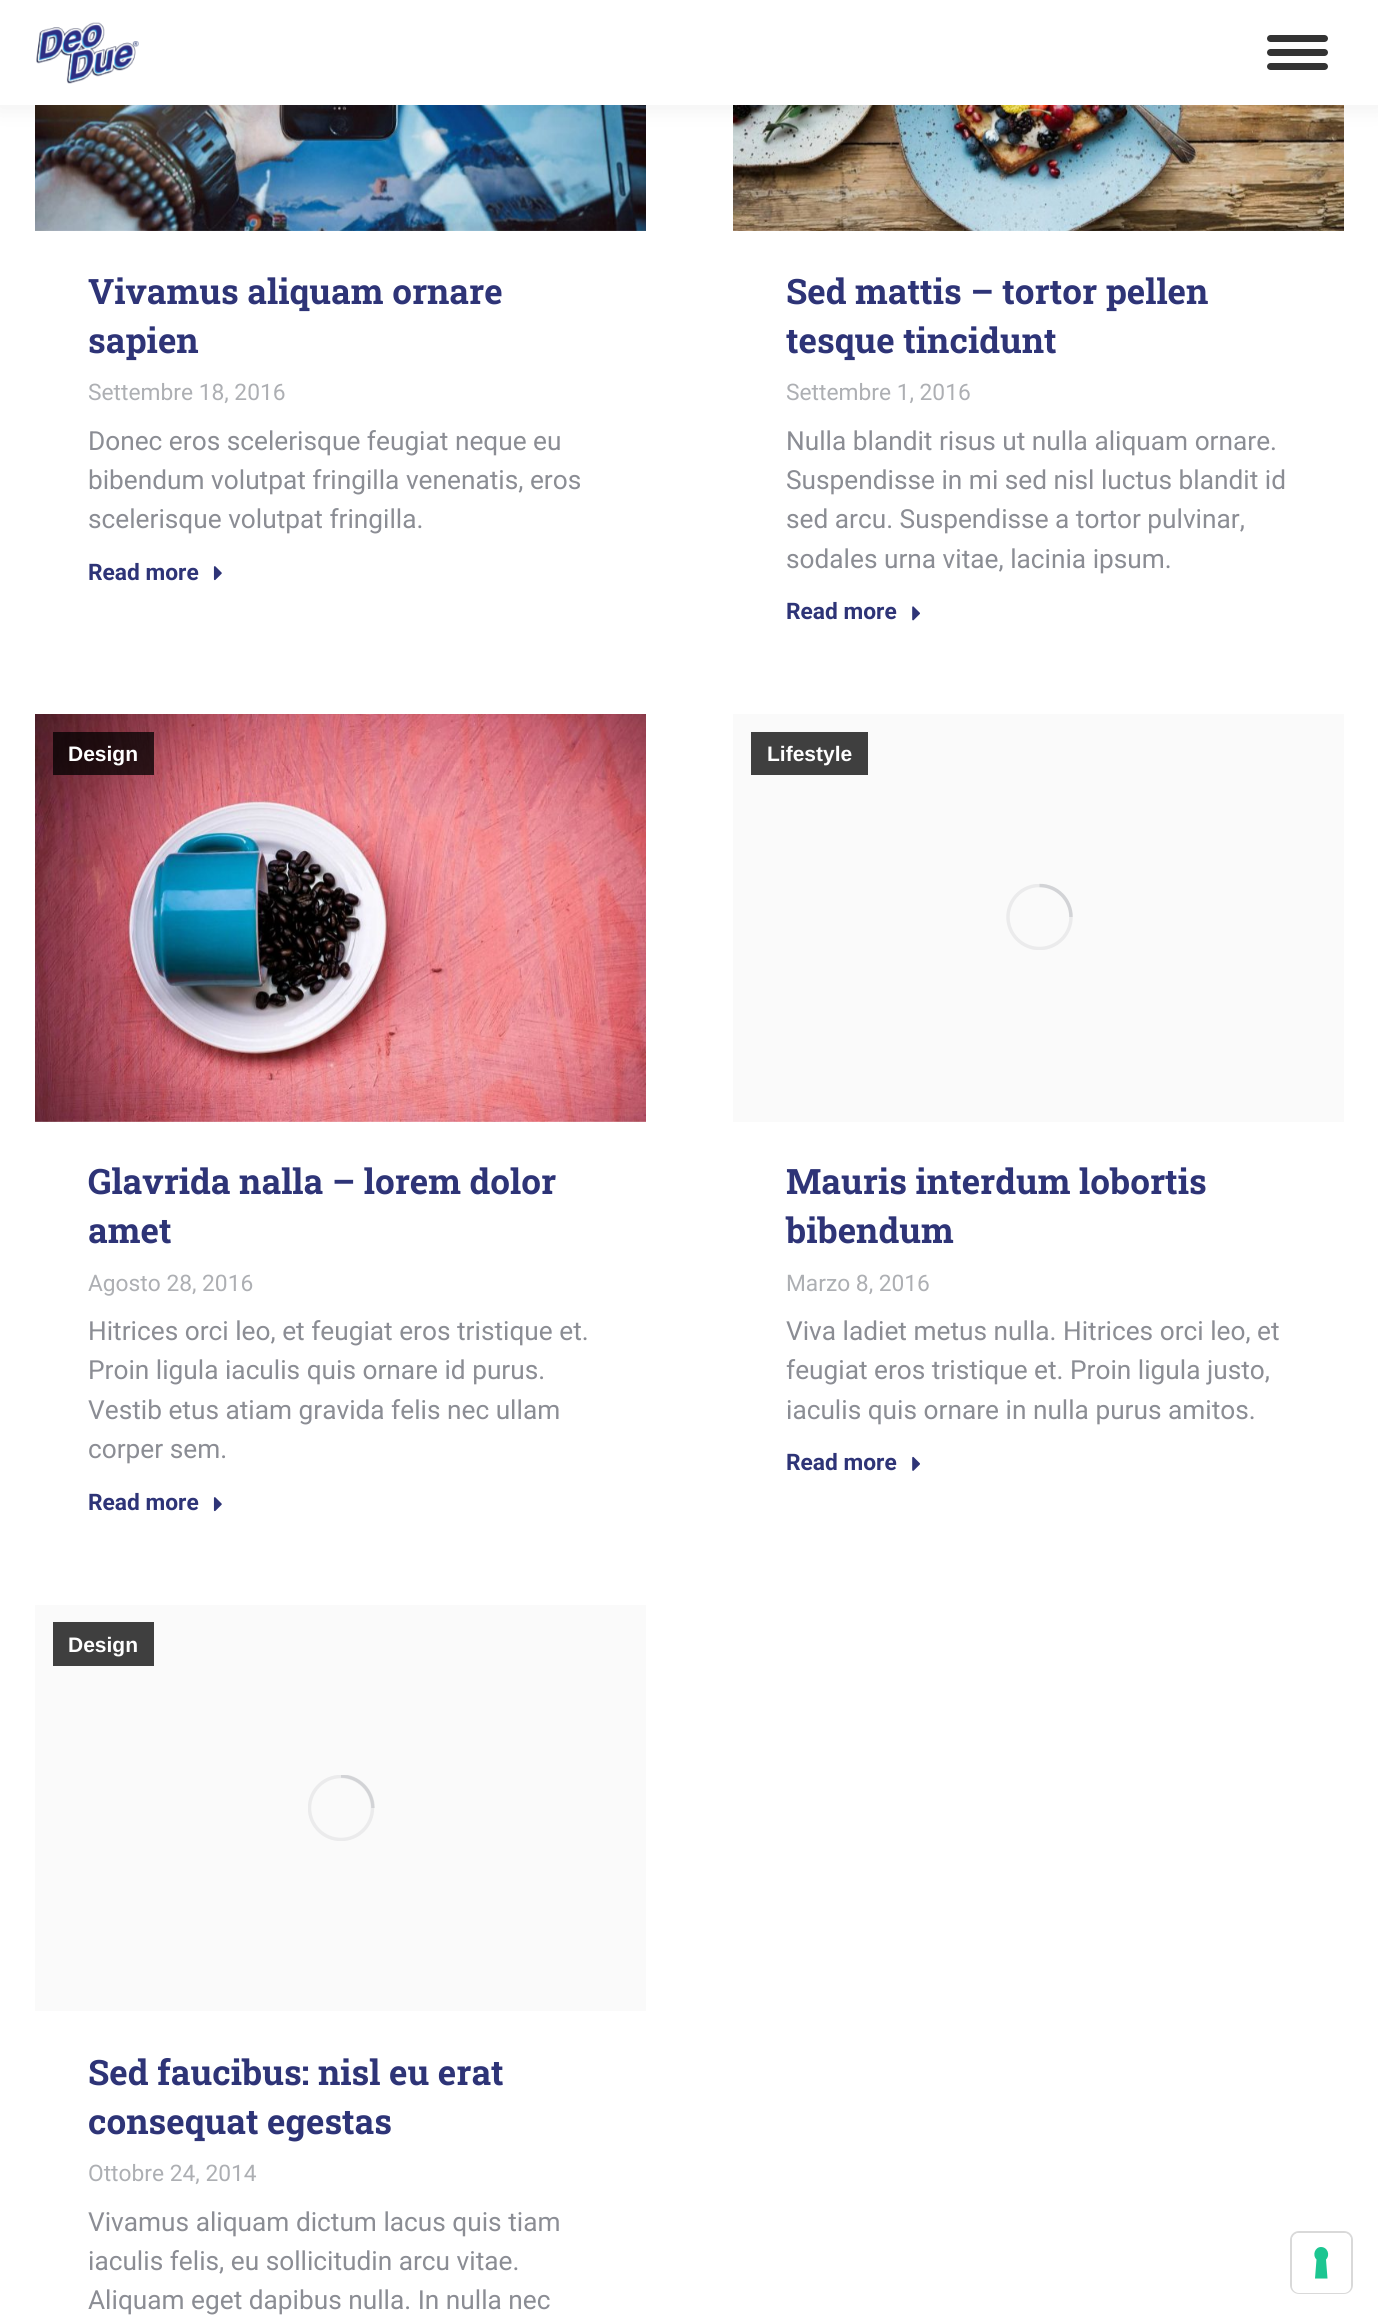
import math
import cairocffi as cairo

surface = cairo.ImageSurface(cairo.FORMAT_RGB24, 1378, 2320)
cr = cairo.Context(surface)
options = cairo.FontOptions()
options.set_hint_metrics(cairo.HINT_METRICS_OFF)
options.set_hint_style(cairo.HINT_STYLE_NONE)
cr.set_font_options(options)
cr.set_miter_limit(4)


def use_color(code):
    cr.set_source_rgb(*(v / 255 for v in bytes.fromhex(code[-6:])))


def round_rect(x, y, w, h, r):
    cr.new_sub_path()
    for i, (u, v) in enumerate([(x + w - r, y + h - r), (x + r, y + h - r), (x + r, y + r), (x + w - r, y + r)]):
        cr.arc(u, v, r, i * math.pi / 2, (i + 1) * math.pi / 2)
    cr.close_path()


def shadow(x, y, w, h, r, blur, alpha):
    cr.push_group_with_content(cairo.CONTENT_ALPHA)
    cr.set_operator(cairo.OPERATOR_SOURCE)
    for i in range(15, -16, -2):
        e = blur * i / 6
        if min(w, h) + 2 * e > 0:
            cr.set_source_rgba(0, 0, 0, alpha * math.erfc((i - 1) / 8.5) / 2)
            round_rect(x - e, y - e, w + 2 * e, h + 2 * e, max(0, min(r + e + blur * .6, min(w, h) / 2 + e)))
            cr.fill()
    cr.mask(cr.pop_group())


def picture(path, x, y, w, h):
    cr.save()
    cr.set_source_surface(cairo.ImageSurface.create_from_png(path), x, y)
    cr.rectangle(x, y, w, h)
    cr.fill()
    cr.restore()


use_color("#ffffff")
cr.paint()
picture("img2.png", 35, 105, 611, 126)
picture("img4.png", 733, 105, 611, 126)
use_color("#000000")
shadow(-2, -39, 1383, 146, 0, 13, 0.07)
use_color("#ffffff")
cr.rectangle(0, 0, 1378, 105)
cr.fill()
picture("img1.png", 36, 22, 103, 62)
use_color("#333333")
round_rect(1267, 35, 61, 7, 3.5)
cr.fill()
round_rect(1267, 49, 61, 7, 3.5)
cr.fill()
round_rect(1267, 63, 61, 7, 3.5)
cr.fill()
cr.select_font_face("Roboto Slab", cairo.FONT_SLANT_NORMAL, cairo.FONT_WEIGHT_BOLD)
cr.set_font_size(35)
use_color("#2e3477")
cr.move_to(88, 304)
cr.show_text("Vivamus aliquam ornare")
cr.move_to(88, 353)
cr.show_text("sapien")
cr.select_font_face("Roboto")
cr.set_font_size(22.75)
use_color("#adafb3")
cr.move_to(88, 400)
cr.show_text("Settembre 18, 2016")
cr.set_font_size(26.25)
use_color("#8b8d94")
cr.move_to(88, 450)
cr.show_text("Donec eros scelerisque feugiat neque eu")
cr.move_to(88, 489)
cr.show_text("bibendum volutpat fringilla venenatis, eros")
cr.move_to(88, 528)
cr.show_text("scelerisque volutpat fringilla.")
cr.select_font_face("Roboto", cairo.FONT_SLANT_NORMAL, cairo.FONT_WEIGHT_BOLD)
cr.set_font_size(22.75)
use_color("#2e3477")
cr.move_to(88, 580)
cr.show_text("Read more")
picture("img3.png", 213, 566, 9, 15)
cr.select_font_face("Roboto Slab", cairo.FONT_SLANT_NORMAL, cairo.FONT_WEIGHT_BOLD)
cr.set_font_size(35)
cr.move_to(786, 304)
cr.show_text("Sed mattis – tortor pellen")
cr.move_to(786, 353)
cr.show_text("tesque tincidunt")
cr.select_font_face("Roboto")
cr.set_font_size(22.75)
use_color("#adafb3")
cr.move_to(786, 400)
cr.show_text("Settembre 1, 2016")
cr.set_font_size(26.25)
use_color("#8b8d94")
cr.move_to(786, 450)
cr.show_text("Nulla blandit risus ut nulla aliquam ornare.")
cr.move_to(786, 489)
cr.show_text("Suspendisse in mi sed nisl luctus blandit id")
cr.move_to(786, 528)
cr.show_text("sed arcu. Suspendisse a tortor pulvinar,")
cr.move_to(786, 568)
cr.show_text("sodales urna vitae, lacinia ipsum.")
cr.select_font_face("Roboto", cairo.FONT_SLANT_NORMAL, cairo.FONT_WEIGHT_BOLD)
cr.set_font_size(22.75)
use_color("#2e3477")
cr.move_to(786, 619)
cr.show_text("Read more")
picture("img5.png", 912, 606, 8, 15)
picture("img6.png", 35, 714, 611, 408)
cr.set_source_rgba(0, 0, 0, 0.75)
cr.rectangle(53, 732, 101, 43)
cr.fill()
cr.select_font_face("Liberation Sans", cairo.FONT_SLANT_NORMAL, cairo.FONT_WEIGHT_BOLD)
cr.set_font_size(21)
use_color("#ffffff")
cr.move_to(68, 761)
cr.show_text("Design")
cr.select_font_face("Roboto Slab", cairo.FONT_SLANT_NORMAL, cairo.FONT_WEIGHT_BOLD)
cr.set_font_size(35)
use_color("#2e3477")
cr.move_to(88, 1194)
cr.show_text("Glavrida nalla – lorem dolor")
cr.move_to(88, 1243)
cr.show_text("amet")
cr.select_font_face("Roboto")
cr.set_font_size(22.75)
use_color("#adafb3")
cr.move_to(88, 1291)
cr.show_text("Agosto 28, 2016")
cr.set_font_size(26.25)
use_color("#8b8d94")
cr.move_to(88, 1340)
cr.show_text("Hitrices orci leo, et feugiat eros tristique et.")
cr.move_to(88, 1379)
cr.show_text("Proin ligula iaculis quis ornare id purus.")
cr.move_to(88, 1419)
cr.show_text("Vestib etus atiam gravida felis nec ullam")
cr.move_to(88, 1458)
cr.show_text("corper sem.")
cr.select_font_face("Roboto", cairo.FONT_SLANT_NORMAL, cairo.FONT_WEIGHT_BOLD)
cr.set_font_size(22.75)
use_color("#2e3477")
cr.move_to(88, 1510)
cr.show_text("Read more")
picture("img3.png", 213, 1497, 9, 15)
use_color("#fafafa")
cr.rectangle(733, 714, 611, 408)
cr.fill()
cr.save()
cr.rectangle(1006, 884, 67, 66)
cr.clip()
cr.arc(1039.5, 917, 31.5, 0, 2 * math.pi)
use_color("#ebebec")
cr.set_line_width(3.5)
cr.stroke()
cr.restore()
cr.new_path()
cr.move_to(1071, 917)
cr.curve_to(1071, 899.5, 1057, 885.5, 1039.5, 885.5)
cr.set_source_rgba(0.545, 0.553, 0.58, 0.25)
cr.set_line_width(3.5)
cr.stroke()
use_color("#3f3f3f")
cr.rectangle(751, 732, 117, 43)
cr.fill()
cr.select_font_face("Liberation Sans", cairo.FONT_SLANT_NORMAL, cairo.FONT_WEIGHT_BOLD)
cr.set_font_size(21)
use_color("#ffffff")
cr.move_to(767, 761)
cr.show_text("Lifestyle")
cr.select_font_face("Roboto Slab", cairo.FONT_SLANT_NORMAL, cairo.FONT_WEIGHT_BOLD)
cr.set_font_size(35)
use_color("#2e3477")
cr.move_to(786, 1194)
cr.show_text("Mauris interdum lobortis")
cr.move_to(786, 1243)
cr.show_text("bibendum")
cr.select_font_face("Roboto")
cr.set_font_size(22.75)
use_color("#adafb3")
cr.move_to(786, 1291)
cr.show_text("Marzo 8, 2016")
cr.set_font_size(26.25)
use_color("#8b8d94")
cr.move_to(786, 1340)
cr.show_text("Viva ladiet metus nulla. Hitrices orci leo, et")
cr.move_to(786, 1379)
cr.show_text("feugiat eros tristique et. Proin ligula justo,")
cr.move_to(786, 1419)
cr.show_text("iaculis quis ornare in nulla purus amitos.")
cr.select_font_face("Roboto", cairo.FONT_SLANT_NORMAL, cairo.FONT_WEIGHT_BOLD)
cr.set_font_size(22.75)
use_color("#2e3477")
cr.move_to(786, 1470)
cr.show_text("Read more")
picture("img7.png", 912, 1456, 8, 15)
use_color("#fafafa")
cr.rectangle(35, 1605, 611, 406)
cr.fill()
cr.save()
cr.rectangle(308, 1775, 67, 66)
cr.clip()
cr.arc(341, 1808, 31.5, 0, 2 * math.pi)
use_color("#ebebec")
cr.stroke()
cr.new_path()
cr.move_to(373, 1808)
cr.curve_to(373, 1790.5, 358.5, 1776, 341, 1776)
cr.set_source_rgba(0.545, 0.553, 0.58, 0.25)
cr.stroke()
cr.restore()
use_color("#3f3f3f")
cr.rectangle(53, 1622, 101, 44)
cr.fill()
cr.select_font_face("Liberation Sans", cairo.FONT_SLANT_NORMAL, cairo.FONT_WEIGHT_BOLD)
cr.set_font_size(21)
use_color("#ffffff")
cr.move_to(68, 1652)
cr.show_text("Design")
cr.select_font_face("Roboto Slab", cairo.FONT_SLANT_NORMAL, cairo.FONT_WEIGHT_BOLD)
cr.set_font_size(35)
use_color("#2e3477")
cr.move_to(88, 2085)
cr.show_text("Sed faucibus: nisl eu erat")
cr.move_to(88, 2134)
cr.show_text("consequat egestas")
cr.select_font_face("Roboto")
cr.set_font_size(22.75)
use_color("#adafb3")
cr.move_to(88, 2181)
cr.show_text("Ottobre 24, 2014")
cr.set_font_size(26.25)
use_color("#8b8d94")
cr.move_to(88, 2231)
cr.show_text("Vivamus aliquam dictum lacus quis tiam")
cr.move_to(88, 2270)
cr.show_text("iaculis felis, eu sollicitudin arcu vitae.")
cr.move_to(88, 2309)
cr.show_text("Aliquam eget dapibus nulla. In nulla nec")
round_rect(1291, 2232, 61, 61, 8)
use_color("#d9d9d9")
cr.set_line_width(2)
cr.stroke()
use_color("#ffffff")
round_rect(1292, 2233, 59, 60, 7)
cr.fill()
use_color("#1cc691")
cr.set_fill_rule(cairo.FILL_RULE_EVEN_ODD)
cr.new_path()
cr.move_to(1321, 2247)
cr.curve_to(1327.5, 2247, 1330.5, 2255, 1326, 2259.5)
cr.line_to(1327.5, 2278.5)
cr.line_to(1315, 2278.5)
cr.line_to(1316.5, 2259.5)
cr.curve_to(1312, 2255, 1315, 2247, 1321, 2247)
cr.close_path()
cr.fill()
surface.write_to_png("result.png")
